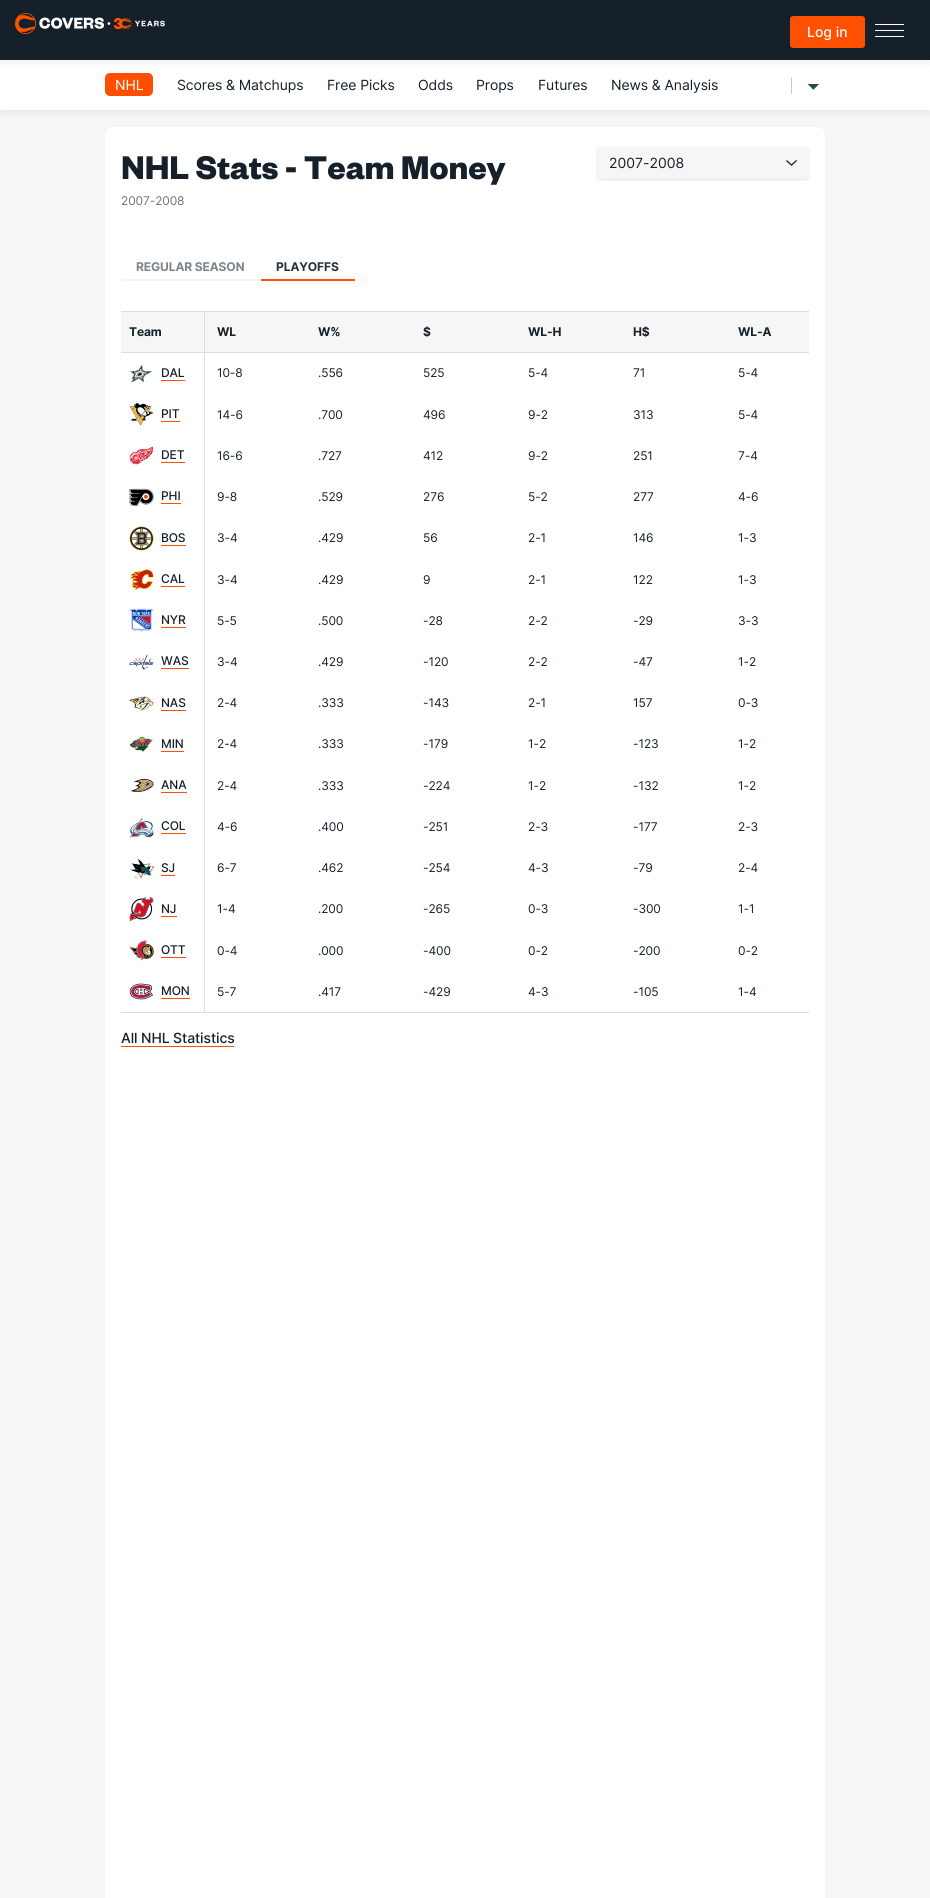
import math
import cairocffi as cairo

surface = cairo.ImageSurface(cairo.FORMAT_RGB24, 930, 1898)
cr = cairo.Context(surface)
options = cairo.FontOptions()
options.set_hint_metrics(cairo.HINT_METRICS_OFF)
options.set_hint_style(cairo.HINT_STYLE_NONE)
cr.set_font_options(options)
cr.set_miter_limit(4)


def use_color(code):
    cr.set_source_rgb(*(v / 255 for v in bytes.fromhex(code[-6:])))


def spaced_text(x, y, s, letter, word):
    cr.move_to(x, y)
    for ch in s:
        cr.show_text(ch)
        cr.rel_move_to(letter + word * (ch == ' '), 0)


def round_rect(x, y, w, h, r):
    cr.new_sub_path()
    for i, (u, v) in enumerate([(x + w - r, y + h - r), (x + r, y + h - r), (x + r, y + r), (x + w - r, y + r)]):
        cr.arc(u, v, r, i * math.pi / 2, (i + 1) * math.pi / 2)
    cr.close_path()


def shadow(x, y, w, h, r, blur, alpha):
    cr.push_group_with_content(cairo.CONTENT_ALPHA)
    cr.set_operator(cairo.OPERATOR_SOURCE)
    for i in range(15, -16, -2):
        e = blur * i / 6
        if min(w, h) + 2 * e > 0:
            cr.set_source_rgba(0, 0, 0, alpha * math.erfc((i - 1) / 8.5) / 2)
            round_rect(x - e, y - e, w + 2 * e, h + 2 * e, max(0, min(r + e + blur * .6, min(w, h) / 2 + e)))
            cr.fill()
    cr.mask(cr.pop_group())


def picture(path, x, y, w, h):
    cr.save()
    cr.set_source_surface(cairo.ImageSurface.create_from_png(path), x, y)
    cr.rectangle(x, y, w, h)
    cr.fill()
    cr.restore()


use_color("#f6f6f6")
cr.paint()
use_color("#000000")
shadow(0, 64, 930, 50, 0, 2, 0.05)
use_color("#ffffff")
cr.rectangle(0, 60, 930, 50)
cr.fill()
use_color("#000000")
shadow(0, 4, 930, 60, 0, 2, 0.05)
use_color("#15202b")
cr.rectangle(0, 0, 930, 60)
cr.fill()
picture("img1.png", 15, 13, 150, 21)
use_color("#fd5000")
round_rect(790, 16, 75, 32, 3)
cr.fill()
cr.select_font_face("Inter Medium")
cr.set_font_size(14)
use_color("#ffffff")
cr.move_to(807, 37)
cr.show_text("Log in")
cr.rectangle(875, 24, 29, 1)
cr.fill()
cr.rectangle(875, 30, 29, 1)
cr.fill()
cr.rectangle(875, 36, 29, 1)
cr.fill()
use_color("#fd4f00")
round_rect(105, 73, 48, 23, 5)
cr.fill()
cr.select_font_face("Inter")
use_color("#ffffff")
spaced_text(115, 90, "NHL", -0.1, 0)
use_color("#15202b")
spaced_text(177, 90, "Scores & Matchups", -0.1, 0)
spaced_text(327, 90, "Free Picks", -0.1, 0)
spaced_text(418, 90, "Odds", -0.1, 0)
spaced_text(476, 90, "Props", -0.1, 0)
spaced_text(538, 90, "Futures", -0.1, 0)
spaced_text(611, 90, "News & Analysis", -0.1, 0)
use_color("#cccccc")
cr.rectangle(791, 77, 1, 17)
cr.fill()
picture("img2.png", 807, 84, 12, 6)
use_color("#ffffff")
round_rect(105, 127, 720, 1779, 8)
cr.fill()
cr.select_font_face("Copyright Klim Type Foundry", cairo.FONT_SLANT_NORMAL, cairo.FONT_WEIGHT_BOLD)
cr.set_font_size(36)
use_color("#15202b")
spaced_text(121, 179, "NHL Stats - Team Money", -0.1, 0)
cr.select_font_face("Inter")
cr.set_font_size(12)
use_color("#727272")
spaced_text(121, 205, "2007-2008", -0.1, 0)
use_color("#000000")
shadow(597, 148, 212, 32, 3, 1, 0.1)
use_color("#f6f6f6")
round_rect(597, 147, 212, 32, 3)
cr.fill()
cr.set_font_size(14)
use_color("#15202b")
cr.move_to(609, 168)
cr.show_text("2007-2008")
picture("img3.png", 786, 160, 11, 6)
use_color("#f6f6f6")
cr.rectangle(121, 279, 140, 2)
cr.fill()
cr.select_font_face("Inter", cairo.FONT_SLANT_NORMAL, cairo.FONT_WEIGHT_BOLD)
cr.set_font_size(12)
use_color("#7c858d")
spaced_text(136, 271, "REGULAR SEASON", -0.1, 0)
use_color("#fd5000")
cr.rectangle(261, 279, 94, 2)
cr.fill()
use_color("#253341")
spaced_text(276, 271, "PLAYOFFS", -0.1, 0)
use_color("#f6f6f6")
cr.rectangle(121, 312, 83, 40)
cr.fill()
use_color("#dddddd")
cr.rectangle(121, 311, 688, 1)
cr.fill()
cr.rectangle(204, 311, 1, 702)
cr.fill()
cr.rectangle(121, 352, 84, 1)
cr.fill()
use_color("#15202b")
spaced_text(129, 336, "Team", -0.1, 0)
use_color("#f6f6f6")
cr.rectangle(205, 312, 604, 40)
cr.fill()
use_color("#dddddd")
cr.rectangle(205, 352, 604, 1)
cr.fill()
use_color("#15202b")
spaced_text(217, 336, "WL", -0.1, 0)
spaced_text(318, 336, "W%", -0.1, 0)
spaced_text(423, 336, "$", -0.1, 0)
spaced_text(528, 336, "WL-H", -0.1, 0)
spaced_text(633, 336, "H$", -0.1, 0)
spaced_text(738, 336, "WL-A", -0.1, 0)
picture("img4.png", 130, 364, 22, 19)
cr.select_font_face("Inter Medium")
spaced_text(161, 377, "DAL", -0.1, 0)
use_color("#fd4f00")
cr.rectangle(161, 380, 24, 1)
cr.fill()
cr.select_font_face("Inter")
use_color("#15202b")
spaced_text(217, 377, "10-8", -0.1, 0)
spaced_text(318, 377, ".556", -0.1, 0)
spaced_text(423, 377, "525", -0.1, 0)
spaced_text(528, 377, "5-4", -0.1, 0)
spaced_text(633, 377, "71", -0.1, 0)
spaced_text(738, 377, "5-4", -0.1, 0)
picture("img5.png", 130, 403, 24, 23)
cr.select_font_face("Inter Medium")
spaced_text(161, 418, "PIT", -0.1, 0)
use_color("#fd4f00")
cr.rectangle(161, 421, 19, 1)
cr.fill()
cr.select_font_face("Inter")
use_color("#15202b")
spaced_text(217, 419, "14-6", -0.1, 0)
spaced_text(318, 419, ".700", -0.1, 0)
spaced_text(423, 419, "496", -0.1, 0)
spaced_text(528, 419, "9-2", -0.1, 0)
spaced_text(633, 419, "313", -0.1, 0)
spaced_text(738, 419, "5-4", -0.1, 0)
picture("img6.png", 129, 446, 25, 19)
cr.select_font_face("Inter Medium")
spaced_text(161, 459, "DET", -0.1, 0)
use_color("#fd4f00")
cr.rectangle(161, 462, 24, 1)
cr.fill()
cr.select_font_face("Inter")
use_color("#15202b")
spaced_text(217, 460, "16-6", -0.1, 0)
spaced_text(318, 460, ".727", -0.1, 0)
spaced_text(423, 460, "412", -0.1, 0)
spaced_text(528, 460, "9-2", -0.1, 0)
spaced_text(633, 460, "251", -0.1, 0)
spaced_text(738, 460, "7-4", -0.1, 0)
picture("img7.png", 129, 488, 25, 19)
cr.select_font_face("Inter Medium")
spaced_text(161, 500, "PHI", -0.1, 0)
use_color("#fd4f00")
cr.rectangle(161, 503, 20, 1)
cr.fill()
cr.select_font_face("Inter")
use_color("#15202b")
spaced_text(217, 501, "9-8", -0.1, 0)
spaced_text(318, 501, ".529", -0.1, 0)
spaced_text(423, 501, "276", -0.1, 0)
spaced_text(528, 501, "5-2", -0.1, 0)
spaced_text(633, 501, "277", -0.1, 0)
spaced_text(738, 501, "4-6", -0.1, 0)
picture("img8.png", 129, 526, 25, 25)
cr.select_font_face("Inter Medium")
spaced_text(161, 542, "BOS", -0.1, 0)
use_color("#fd4f00")
cr.rectangle(161, 545, 25, 1)
cr.fill()
cr.select_font_face("Inter")
use_color("#15202b")
spaced_text(217, 542, "3-4", -0.1, 0)
spaced_text(318, 542, ".429", -0.1, 0)
spaced_text(423, 542, "56", -0.1, 0)
spaced_text(528, 542, "2-1", -0.1, 0)
spaced_text(633, 542, "146", -0.1, 0)
spaced_text(738, 542, "1-3", -0.1, 0)
picture("img9.png", 130, 569, 24, 21)
cr.select_font_face("Inter Medium")
spaced_text(161, 583, "CAL", -0.1, 0)
use_color("#fd4f00")
cr.rectangle(161, 586, 24, 1)
cr.fill()
cr.select_font_face("Inter")
use_color("#15202b")
spaced_text(217, 584, "3-4", -0.1, 0)
spaced_text(318, 584, ".429", -0.1, 0)
spaced_text(423, 584, "9", -0.1, 0)
spaced_text(528, 584, "2-1", -0.1, 0)
spaced_text(633, 584, "122", -0.1, 0)
spaced_text(738, 584, "1-3", -0.1, 0)
picture("img10.png", 129, 608, 25, 24)
cr.select_font_face("Inter Medium")
spaced_text(161, 624, "NYR", -0.1, 0)
use_color("#fd4f00")
cr.rectangle(161, 627, 25, 1)
cr.fill()
cr.select_font_face("Inter")
use_color("#15202b")
spaced_text(217, 625, "5-5", -0.1, 0)
spaced_text(318, 625, ".500", -0.1, 0)
spaced_text(423, 625, "-28", -0.1, 0)
spaced_text(528, 625, "2-2", -0.1, 0)
spaced_text(633, 625, "-29", -0.1, 0)
spaced_text(738, 625, "3-3", -0.1, 0)
picture("img11.png", 129, 654, 25, 16)
cr.select_font_face("Inter Medium")
spaced_text(161, 665, "WAS", -0.1, 0)
use_color("#fd4f00")
cr.rectangle(161, 668, 28, 1)
cr.fill()
cr.select_font_face("Inter")
use_color("#15202b")
spaced_text(217, 666, "3-4", -0.1, 0)
spaced_text(318, 666, ".429", -0.1, 0)
spaced_text(423, 666, "-120", -0.1, 0)
spaced_text(528, 666, "2-2", -0.1, 0)
spaced_text(633, 666, "-47", -0.1, 0)
spaced_text(738, 666, "1-2", -0.1, 0)
picture("img12.png", 129, 696, 25, 15)
cr.select_font_face("Inter Medium")
spaced_text(161, 707, "NAS", -0.1, 0)
use_color("#fd4f00")
cr.rectangle(161, 710, 25, 1)
cr.fill()
cr.select_font_face("Inter")
use_color("#15202b")
spaced_text(217, 707, "2-4", -0.1, 0)
spaced_text(318, 707, ".333", -0.1, 0)
spaced_text(423, 707, "-143", -0.1, 0)
spaced_text(528, 707, "2-1", -0.1, 0)
spaced_text(633, 707, "157", -0.1, 0)
spaced_text(738, 707, "0-3", -0.1, 0)
picture("img13.png", 129, 736, 25, 16)
cr.select_font_face("Inter Medium")
spaced_text(161, 748, "MIN", -0.1, 0)
use_color("#fd4f00")
cr.rectangle(161, 751, 23, 1)
cr.fill()
cr.select_font_face("Inter")
use_color("#15202b")
spaced_text(217, 748, "2-4", -0.1, 0)
spaced_text(318, 748, ".333", -0.1, 0)
spaced_text(423, 748, "-179", -0.1, 0)
spaced_text(528, 748, "1-2", -0.1, 0)
spaced_text(633, 748, "-123", -0.1, 0)
spaced_text(738, 748, "1-2", -0.1, 0)
picture("img14.png", 130, 778, 24, 15)
cr.select_font_face("Inter Medium")
spaced_text(161, 789, "ANA", -0.1, 0)
use_color("#fd4f00")
cr.rectangle(161, 792, 26, 1)
cr.fill()
cr.select_font_face("Inter")
use_color("#15202b")
spaced_text(217, 790, "2-4", -0.1, 0)
spaced_text(318, 790, ".333", -0.1, 0)
spaced_text(423, 790, "-224", -0.1, 0)
spaced_text(528, 790, "1-2", -0.1, 0)
spaced_text(633, 790, "-132", -0.1, 0)
spaced_text(738, 790, "1-2", -0.1, 0)
picture("img15.png", 129, 817, 25, 21)
cr.select_font_face("Inter Medium")
spaced_text(161, 830, "COL", -0.1, 0)
use_color("#fd4f00")
cr.rectangle(161, 833, 25, 1)
cr.fill()
cr.select_font_face("Inter")
use_color("#15202b")
spaced_text(217, 831, "4-6", -0.1, 0)
spaced_text(318, 831, ".400", -0.1, 0)
spaced_text(423, 831, "-251", -0.1, 0)
spaced_text(528, 831, "2-3", -0.1, 0)
spaced_text(633, 831, "-177", -0.1, 0)
spaced_text(738, 831, "2-3", -0.1, 0)
picture("img16.png", 130, 858, 24, 21)
cr.select_font_face("Inter Medium")
spaced_text(161, 872, "SJ", -0.1, 0)
use_color("#fd4f00")
cr.rectangle(161, 875, 14, 1)
cr.fill()
cr.select_font_face("Inter")
use_color("#15202b")
spaced_text(217, 872, "6-7", -0.1, 0)
spaced_text(318, 872, ".462", -0.1, 0)
spaced_text(423, 872, "-254", -0.1, 0)
spaced_text(528, 872, "4-3", -0.1, 0)
spaced_text(633, 872, "-79", -0.1, 0)
spaced_text(738, 872, "2-4", -0.1, 0)
picture("img17.png", 129, 897, 25, 25)
cr.select_font_face("Inter Medium")
spaced_text(161, 913, "NJ", -0.1, 0)
use_color("#fd4f00")
cr.rectangle(161, 916, 16, 1)
cr.fill()
cr.select_font_face("Inter")
use_color("#15202b")
spaced_text(217, 913, "1-4", -0.1, 0)
spaced_text(318, 913, ".200", -0.1, 0)
spaced_text(423, 913, "-265", -0.1, 0)
spaced_text(528, 913, "0-3", -0.1, 0)
spaced_text(633, 913, "-300", -0.1, 0)
spaced_text(738, 913, "1-1", -0.1, 0)
picture("img18.png", 129, 940, 25, 21)
cr.select_font_face("Inter Medium")
spaced_text(161, 954, "OTT", -0.1, 0)
use_color("#fd4f00")
cr.rectangle(161, 957, 25, 1)
cr.fill()
cr.select_font_face("Inter")
use_color("#15202b")
spaced_text(217, 955, "0-4", -0.1, 0)
spaced_text(318, 955, ".000", -0.1, 0)
spaced_text(423, 955, "-400", -0.1, 0)
spaced_text(528, 955, "0-2", -0.1, 0)
spaced_text(633, 955, "-200", -0.1, 0)
spaced_text(738, 955, "0-2", -0.1, 0)
use_color("#dddddd")
cr.rectangle(121, 1012, 84, 1)
cr.fill()
picture("img19.png", 129, 983, 24, 17)
cr.select_font_face("Inter Medium")
use_color("#15202b")
spaced_text(161, 995, "MON", -0.1, 0)
use_color("#fd4f00")
cr.rectangle(161, 998, 29, 1)
cr.fill()
use_color("#dddddd")
cr.rectangle(205, 1012, 604, 1)
cr.fill()
cr.select_font_face("Inter")
use_color("#15202b")
spaced_text(217, 996, "5-7", -0.1, 0)
spaced_text(318, 996, ".417", -0.1, 0)
spaced_text(423, 996, "-429", -0.1, 0)
spaced_text(528, 996, "4-3", -0.1, 0)
spaced_text(633, 996, "-105", -0.1, 0)
spaced_text(738, 996, "1-4", -0.1, 0)
cr.select_font_face("Inter Medium")
cr.set_font_size(14)
spaced_text(121, 1043, "All NHL Statistics", -0.1, 0)
use_color("#fd4f00")
cr.rectangle(121, 1046, 113, 1)
cr.fill()
surface.write_to_png("result.png")
